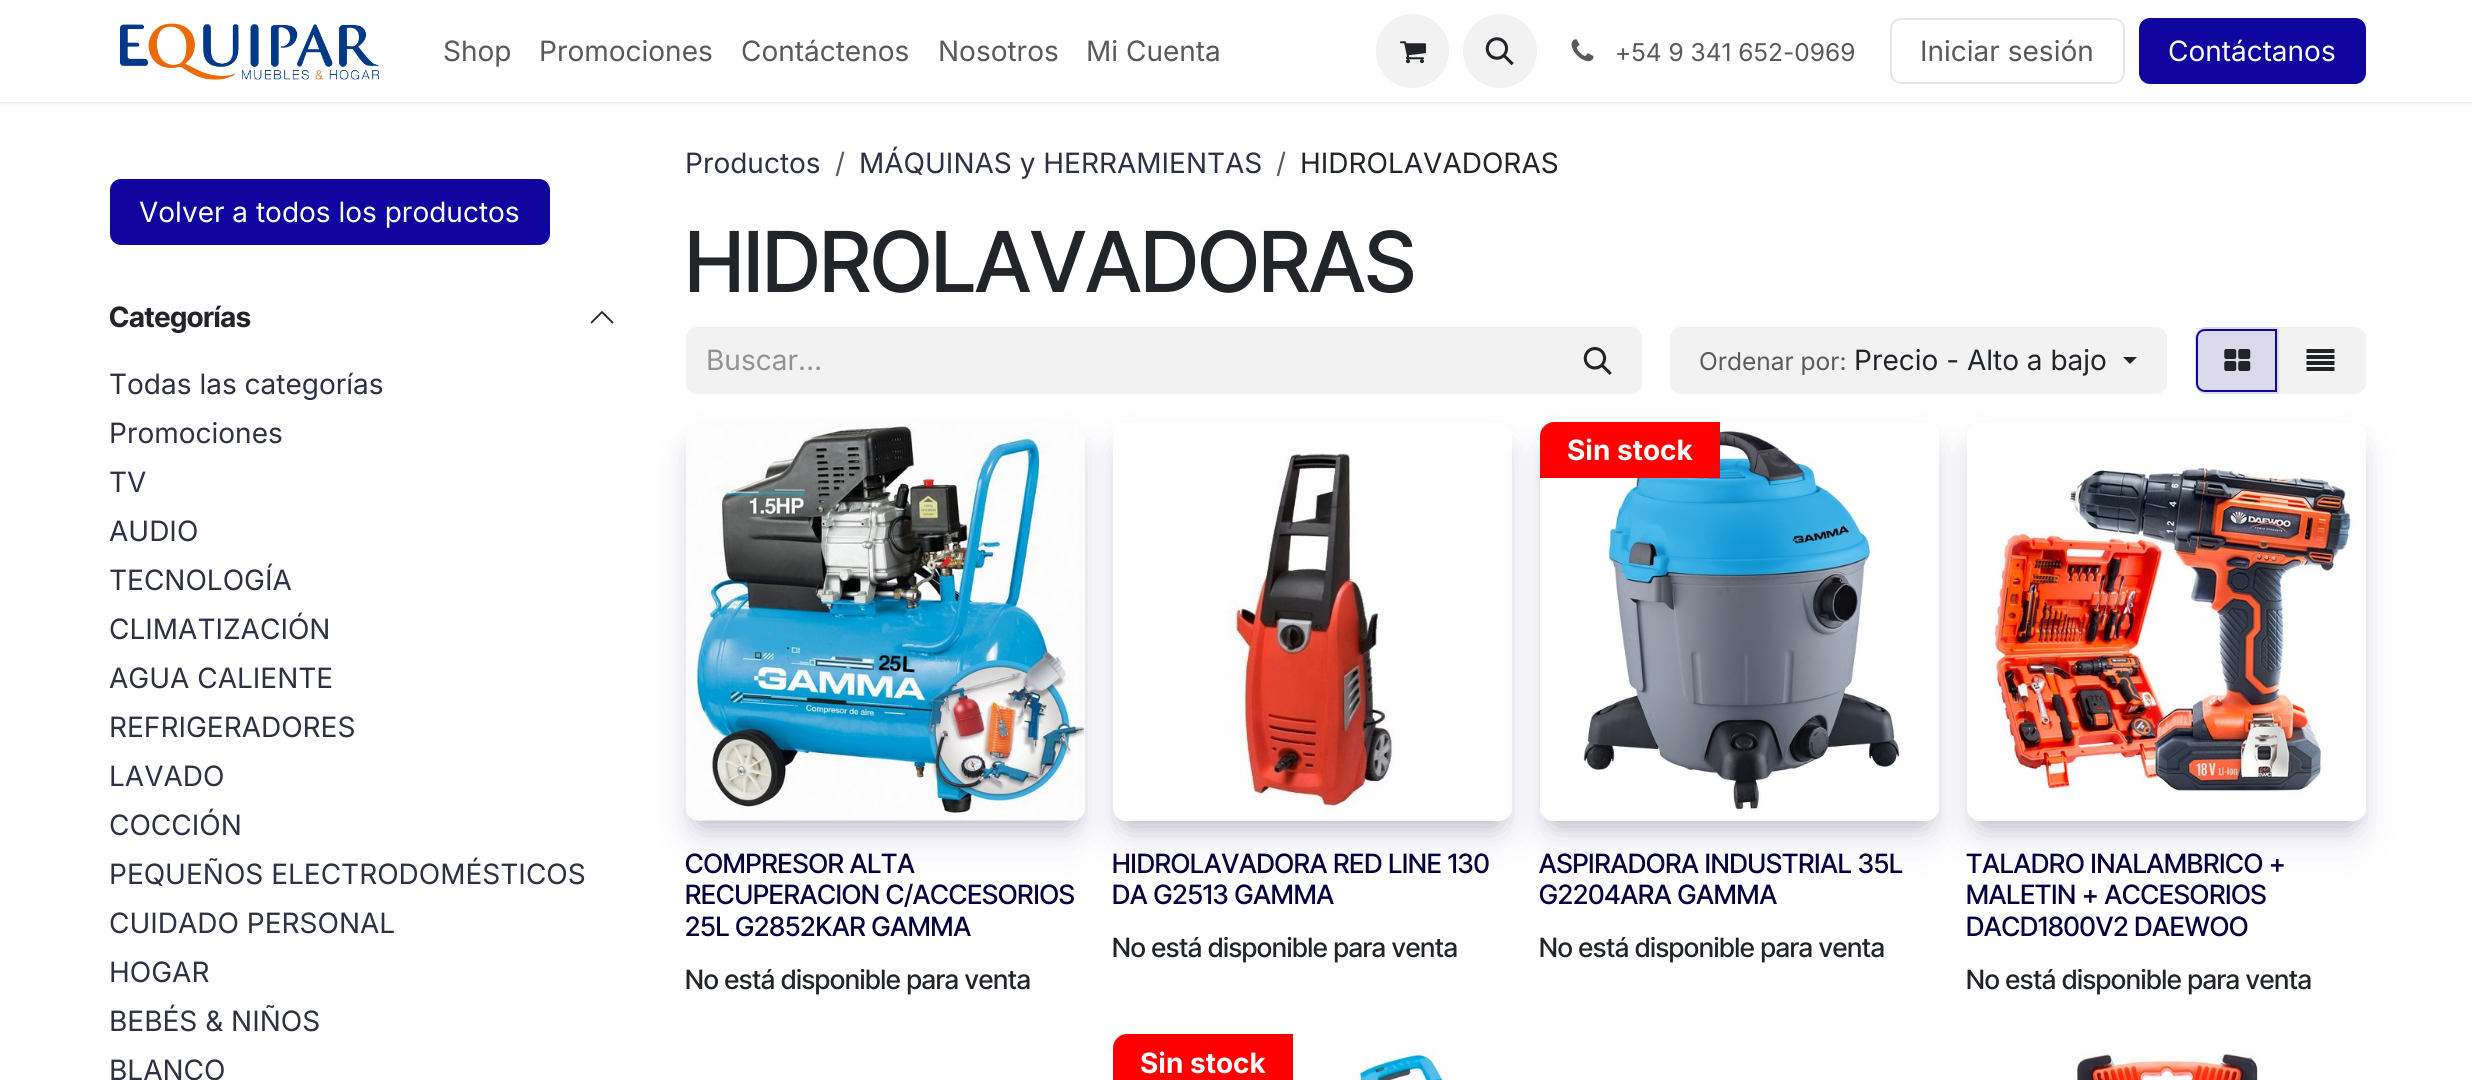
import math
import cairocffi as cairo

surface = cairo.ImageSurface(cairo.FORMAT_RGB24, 2472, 1080)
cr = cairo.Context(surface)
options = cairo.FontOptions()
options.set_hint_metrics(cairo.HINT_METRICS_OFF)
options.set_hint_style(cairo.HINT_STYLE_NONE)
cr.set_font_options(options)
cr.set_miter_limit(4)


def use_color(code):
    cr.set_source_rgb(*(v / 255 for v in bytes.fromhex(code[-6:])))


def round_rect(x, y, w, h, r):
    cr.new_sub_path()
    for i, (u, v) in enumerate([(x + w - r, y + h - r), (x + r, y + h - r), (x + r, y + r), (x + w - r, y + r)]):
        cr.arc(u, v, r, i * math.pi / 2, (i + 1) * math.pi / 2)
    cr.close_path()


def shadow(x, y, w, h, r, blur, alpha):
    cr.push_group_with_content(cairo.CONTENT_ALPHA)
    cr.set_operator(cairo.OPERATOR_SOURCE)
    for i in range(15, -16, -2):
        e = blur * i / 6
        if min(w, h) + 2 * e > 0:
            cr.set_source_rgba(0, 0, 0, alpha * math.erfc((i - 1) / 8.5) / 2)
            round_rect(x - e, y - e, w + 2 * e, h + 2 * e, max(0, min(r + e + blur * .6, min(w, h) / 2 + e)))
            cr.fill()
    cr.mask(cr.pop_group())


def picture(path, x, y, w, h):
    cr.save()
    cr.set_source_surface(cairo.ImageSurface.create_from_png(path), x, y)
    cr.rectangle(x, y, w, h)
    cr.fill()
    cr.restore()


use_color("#ffffff")
cr.paint()
use_color("#000000")
shadow(0, 2, 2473, 101, 0, 2.5, 0.1)
use_color("#ffffff")
cr.rectangle(0, 0, 2472, 102)
cr.fill()
picture("img1.png", 120, 23, 260, 57)
cr.select_font_face("Inter")
cr.set_font_size(28)
use_color("#595959")
cr.move_to(443, 61)
cr.show_text("Shop")
cr.move_to(539, 61)
cr.show_text("Promociones")
cr.move_to(741, 61)
cr.show_text("Contáctenos")
cr.move_to(938, 61)
cr.show_text("Nosotros")
cr.move_to(1086, 61)
cr.show_text("Mi Cuenta")
use_color("#f2f2f2")
round_rect(1376, 14, 73, 74, 36.5)
cr.fill()
picture("img2.png", 1400, 41, 26, 23)
cr.arc(1500, 51, 37, 0, 2 * math.pi)
cr.fill()
picture("img3.png", 1485, 37, 29, 29)
picture("img4.png", 1571, 39, 23, 23)
cr.set_font_size(24.5)
use_color("#595959")
cr.move_to(1615, 61)
cr.show_text("+54 9 341 652-0969")
round_rect(1891, 19, 233, 64, 10)
use_color("#e6e6e6")
cr.stroke()
cr.set_font_size(28)
use_color("#595959")
cr.move_to(1920, 61)
cr.show_text("Iniciar sesión")
use_color("#10069f")
round_rect(2140, 19, 225, 64, 10)
cr.fill_preserve()
cr.stroke()
use_color("#ffffff")
cr.move_to(2168, 61)
cr.show_text("Contáctanos")
use_color("#10069f")
round_rect(111, 180, 438, 64, 10)
cr.fill_preserve()
cr.stroke()
use_color("#ffffff")
cr.move_to(139, 222)
cr.show_text("Volver a todos los productos")
cr.select_font_face("Inter Tight", cairo.FONT_SLANT_NORMAL, cairo.FONT_WEIGHT_BOLD)
use_color("#212529")
cr.move_to(109, 327)
cr.show_text("Categorías")
cr.new_path()
cr.move_to(612.5, 322.5)
cr.line_to(602, 312)
cr.line_to(591.5, 322.5)
cr.set_line_width(1.8)
cr.set_line_cap(cairo.LINE_CAP_ROUND)
cr.set_line_join(cairo.LINE_JOIN_ROUND)
cr.stroke()
cr.select_font_face("Inter")
use_color("#2d3142")
cr.move_to(109, 394)
cr.show_text("Todas las categorías")
cr.move_to(109, 443)
cr.show_text("Promociones")
cr.move_to(109, 492)
cr.show_text("TV")
cr.move_to(109, 541)
cr.show_text("AUDIO")
cr.move_to(109, 590)
cr.show_text("TECNOLOGÍA")
cr.move_to(109, 639)
cr.show_text("CLIMATIZACIÓN")
cr.move_to(109, 688)
cr.show_text("AGUA CALIENTE")
cr.move_to(109, 737)
cr.show_text("REFRIGERADORES")
cr.move_to(109, 786)
cr.show_text("LAVADO")
cr.move_to(109, 835)
cr.show_text("COCCIÓN")
cr.move_to(109, 884)
cr.show_text("PEQUEÑOS ELECTRODOMÉSTICOS")
cr.move_to(109, 933)
cr.show_text("CUIDADO PERSONAL")
cr.move_to(109, 982)
cr.show_text("HOGAR")
cr.move_to(109, 1031)
cr.show_text("BEBÉS & NIÑOS")
cr.move_to(109, 1080)
cr.show_text("BLANCO")
cr.move_to(685, 173)
cr.show_text("Productos")
use_color("#595c5f")
cr.move_to(835, 173)
cr.show_text("/")
use_color("#2d3142")
cr.move_to(859, 173)
cr.show_text("MÁQUINAS y HERRAMIENTAS")
use_color("#595c5f")
cr.move_to(1276, 173)
cr.show_text("/")
use_color("#212529")
cr.move_to(1300, 173)
cr.show_text("HIDROLAVADORAS")
cr.select_font_face("Inter Tight Medium")
cr.set_font_size(84)
cr.move_to(685, 292)
cr.show_text("HIDROLAVADORAS")
use_color("#f3f2f2")
cr.new_path()
cr.move_to(697, 327)
cr.line_to(1556, 327)
cr.line_to(1556, 394)
cr.line_to(697, 394)
cr.curve_to(691, 394, 686, 389, 686, 383)
cr.line_to(686, 338)
cr.curve_to(686, 332, 691, 327, 697, 327)
cr.close_path()
cr.fill()
cr.select_font_face("Inter")
cr.set_font_size(28)
use_color("#909294")
cr.move_to(706, 370)
cr.show_text("Buscar…")
use_color("#000000")
shadow(700, 450, 371, 371, 0, 14, 0.28)
use_color("#10069f")
shadow(695, 453, 381, 382, 4, 23.5, 0.1)
picture("img8.png", 686, 422, 399, 399)
cr.save()
cr.set_fill_rule(cairo.FILL_RULE_EVEN_ODD)
cr.new_path()
cr.move_to(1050, 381)
cr.line_to(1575, 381)
cr.line_to(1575, 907)
cr.line_to(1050, 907)
cr.close_path()
cr.move_to(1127, 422)
cr.line_to(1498, 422)
cr.curve_to(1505.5, 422, 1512, 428.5, 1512, 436)
cr.line_to(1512, 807)
cr.curve_to(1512, 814.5, 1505.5, 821, 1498, 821)
cr.line_to(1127, 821)
cr.curve_to(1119.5, 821, 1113, 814.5, 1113, 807)
cr.line_to(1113, 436)
cr.curve_to(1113, 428.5, 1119.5, 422, 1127, 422)
cr.close_path()
cr.clip()
shadow(1122, 453, 381, 382, 4, 23.5, 0.1)
cr.restore()
use_color("#f3f2f2")
round_rect(1671, 328, 495, 65, 10)
cr.fill_preserve()
cr.set_line_width(2)
cr.set_line_cap(cairo.LINE_CAP_BUTT)
cr.set_line_join(cairo.LINE_JOIN_MITER)
cr.stroke()
cr.save()
cr.set_fill_rule(cairo.FILL_RULE_EVEN_ODD)
cr.new_path()
cr.move_to(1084, 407)
cr.line_to(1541, 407)
cr.line_to(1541, 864)
cr.line_to(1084, 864)
cr.close_path()
cr.move_to(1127, 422)
cr.line_to(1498, 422)
cr.curve_to(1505.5, 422, 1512, 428.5, 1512, 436)
cr.line_to(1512, 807)
cr.curve_to(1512, 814.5, 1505.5, 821, 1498, 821)
cr.line_to(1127, 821)
cr.curve_to(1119.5, 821, 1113, 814.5, 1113, 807)
cr.line_to(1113, 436)
cr.curve_to(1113, 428.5, 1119.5, 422, 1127, 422)
cr.close_path()
cr.clip()
use_color("#000000")
shadow(1127, 450, 371, 371, 0, 14, 0.28)
cr.restore()
picture("img9.png", 1113, 453, 399, 368)
cr.save()
cr.set_fill_rule(cairo.FILL_RULE_EVEN_ODD)
cr.new_path()
cr.move_to(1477, 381)
cr.line_to(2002, 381)
cr.line_to(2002, 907)
cr.line_to(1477, 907)
cr.close_path()
cr.move_to(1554, 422)
cr.line_to(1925, 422)
cr.curve_to(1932.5, 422, 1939, 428.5, 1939, 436)
cr.line_to(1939, 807)
cr.curve_to(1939, 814.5, 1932.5, 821, 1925, 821)
cr.line_to(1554, 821)
cr.curve_to(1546.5, 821, 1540, 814.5, 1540, 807)
cr.line_to(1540, 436)
cr.curve_to(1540, 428.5, 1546.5, 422, 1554, 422)
cr.close_path()
cr.clip()
use_color("#10069f")
shadow(1549, 453, 381, 382, 4, 23.5, 0.1)
cr.restore()
cr.new_path()
cr.move_to(1555, 328)
cr.line_to(1631, 328)
cr.curve_to(1636.5, 328, 1641, 332.5, 1641, 338)
cr.line_to(1641, 383)
cr.curve_to(1641, 388.5, 1636.5, 393, 1631, 393)
cr.line_to(1555, 393)
cr.close_path()
cr.fill_preserve()
cr.stroke()
picture("img5.png", 1583, 347, 29, 28)
cr.set_font_size(24.5)
use_color("#595c5f")
cr.move_to(1699, 370)
cr.show_text("Ordenar por:")
cr.set_font_size(28)
use_color("#212529")
cr.move_to(1854, 370)
cr.show_text("Precio - Alto a bajo")
cr.new_path()
cr.move_to(2123, 357)
cr.line_to(2137, 357)
cr.line_to(2130, 364)
cr.close_path()
cr.fill()
use_color("#f3f2f2")
cr.new_path()
cr.move_to(2278, 328)
cr.line_to(2355, 328)
cr.curve_to(2360.5, 328, 2365, 332.5, 2365, 338)
cr.line_to(2365, 383)
cr.curve_to(2365, 388.5, 2360.5, 393, 2355, 393)
cr.line_to(2278, 393)
cr.close_path()
cr.fill_preserve()
cr.stroke()
cr.save()
cr.set_fill_rule(cairo.FILL_RULE_EVEN_ODD)
cr.new_path()
cr.move_to(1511, 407)
cr.line_to(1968, 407)
cr.line_to(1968, 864)
cr.line_to(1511, 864)
cr.close_path()
cr.move_to(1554, 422)
cr.line_to(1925, 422)
cr.curve_to(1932.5, 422, 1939, 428.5, 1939, 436)
cr.line_to(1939, 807)
cr.curve_to(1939, 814.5, 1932.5, 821, 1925, 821)
cr.line_to(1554, 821)
cr.curve_to(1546.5, 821, 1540, 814.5, 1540, 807)
cr.line_to(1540, 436)
cr.curve_to(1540, 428.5, 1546.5, 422, 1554, 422)
cr.close_path()
cr.clip()
use_color("#000000")
shadow(1554, 450, 371, 371, 0, 14, 0.28)
cr.restore()
picture("img10.png", 1540, 431, 399, 390)
cr.save()
cr.set_fill_rule(cairo.FILL_RULE_EVEN_ODD)
cr.new_path()
cr.move_to(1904, 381)
cr.line_to(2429, 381)
cr.line_to(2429, 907)
cr.line_to(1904, 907)
cr.close_path()
cr.move_to(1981, 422)
cr.line_to(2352, 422)
cr.curve_to(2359.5, 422, 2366, 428.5, 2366, 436)
cr.line_to(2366, 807)
cr.curve_to(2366, 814.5, 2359.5, 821, 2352, 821)
cr.line_to(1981, 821)
cr.curve_to(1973.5, 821, 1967, 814.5, 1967, 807)
cr.line_to(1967, 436)
cr.curve_to(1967, 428.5, 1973.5, 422, 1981, 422)
cr.close_path()
cr.clip()
use_color("#10069f")
shadow(1976, 453, 381, 382, 4, 23.5, 0.1)
cr.restore()
use_color("#dcdaea")
cr.new_path()
cr.move_to(2206, 327)
cr.line_to(2279, 327)
cr.line_to(2279, 394)
cr.line_to(2206, 394)
cr.curve_to(2200, 394, 2195, 389, 2195, 383)
cr.line_to(2195, 338)
cr.curve_to(2195, 332, 2200, 327, 2206, 327)
cr.close_path()
cr.fill()
cr.new_path()
cr.move_to(2205, 330)
cr.line_to(2276, 330)
cr.line_to(2276, 391)
cr.line_to(2205, 391)
cr.curve_to(2200.5, 391, 2197, 387.5, 2197, 383)
cr.line_to(2197, 338)
cr.curve_to(2197, 333.5, 2200.5, 330, 2205, 330)
cr.close_path()
use_color("#10069f")
cr.stroke()
picture("img6.png", 2224, 349, 27, 22)
picture("img7.png", 2306, 349, 29, 22)
cr.select_font_face("Inter Tight Medium")
cr.set_font_size(26.6)
use_color("#060240")
cr.move_to(685, 873)
cr.show_text("COMPRESOR ALTA")
cr.move_to(685, 904)
cr.show_text("RECUPERACION C/ACCESORIOS")
cr.move_to(685, 936)
cr.show_text("25L G2852KAR GAMMA")
use_color("#212529")
cr.move_to(685, 989)
cr.show_text("No está disponible para venta")
use_color("#060240")
cr.move_to(1112, 873)
cr.show_text("HIDROLAVADORA RED LINE 130")
cr.move_to(1112, 904)
cr.show_text("DA G2513 GAMMA")
use_color("#212529")
cr.move_to(1112, 957)
cr.show_text("No está disponible para venta")
use_color("#ff0000")
cr.new_path()
cr.move_to(1554, 422)
cr.line_to(1720, 422)
cr.line_to(1720, 478)
cr.line_to(1540, 478)
cr.line_to(1540, 436)
cr.curve_to(1540, 428.5, 1546.5, 422, 1554, 422)
cr.close_path()
cr.fill()
cr.select_font_face("Inter", cairo.FONT_SLANT_NORMAL, cairo.FONT_WEIGHT_BOLD)
cr.set_font_size(28)
use_color("#ffffff")
cr.move_to(1567, 460)
cr.show_text("Sin stock")
cr.select_font_face("Inter Tight Medium")
cr.set_font_size(26.6)
use_color("#060240")
cr.move_to(1539, 873)
cr.show_text("ASPIRADORA INDUSTRIAL 35L")
cr.move_to(1539, 904)
cr.show_text("G2204ARA GAMMA")
use_color("#212529")
cr.move_to(1539, 957)
cr.show_text("No está disponible para venta")
cr.save()
cr.set_fill_rule(cairo.FILL_RULE_EVEN_ODD)
cr.new_path()
cr.move_to(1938, 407)
cr.line_to(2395, 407)
cr.line_to(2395, 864)
cr.line_to(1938, 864)
cr.close_path()
cr.move_to(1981, 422)
cr.line_to(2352, 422)
cr.curve_to(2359.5, 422, 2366, 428.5, 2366, 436)
cr.line_to(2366, 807)
cr.curve_to(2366, 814.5, 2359.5, 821, 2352, 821)
cr.line_to(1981, 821)
cr.curve_to(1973.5, 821, 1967, 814.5, 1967, 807)
cr.line_to(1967, 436)
cr.curve_to(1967, 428.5, 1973.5, 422, 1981, 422)
cr.close_path()
cr.clip()
use_color("#000000")
shadow(1981, 450, 371, 371, 0, 14, 0.28)
cr.restore()
picture("img11.png", 1967, 465, 399, 356)
use_color("#060240")
cr.move_to(1966, 873)
cr.show_text("TALADRO INALAMBRICO +")
cr.move_to(1966, 904)
cr.show_text("MALETIN + ACCESORIOS")
cr.move_to(1966, 936)
cr.show_text("DACD1800V2 DAEWOO")
use_color("#212529")
cr.move_to(1966, 989)
cr.show_text("No está disponible para venta")
use_color("#ff0000")
cr.new_path()
cr.move_to(1127, 1034)
cr.line_to(1293, 1034)
cr.line_to(1293, 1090)
cr.line_to(1113, 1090)
cr.line_to(1113, 1048)
cr.curve_to(1113, 1040.5, 1119.5, 1034, 1127, 1034)
cr.close_path()
cr.fill()
cr.select_font_face("Inter", cairo.FONT_SLANT_NORMAL, cairo.FONT_WEIGHT_BOLD)
cr.set_font_size(28)
use_color("#ffffff")
cr.move_to(1140, 1073)
cr.show_text("Sin stock")
picture("img12.png", 1352, 1048, 96, 32)
picture("img13.png", 2076, 1053, 184, 27)
surface.write_to_png("result.png")
